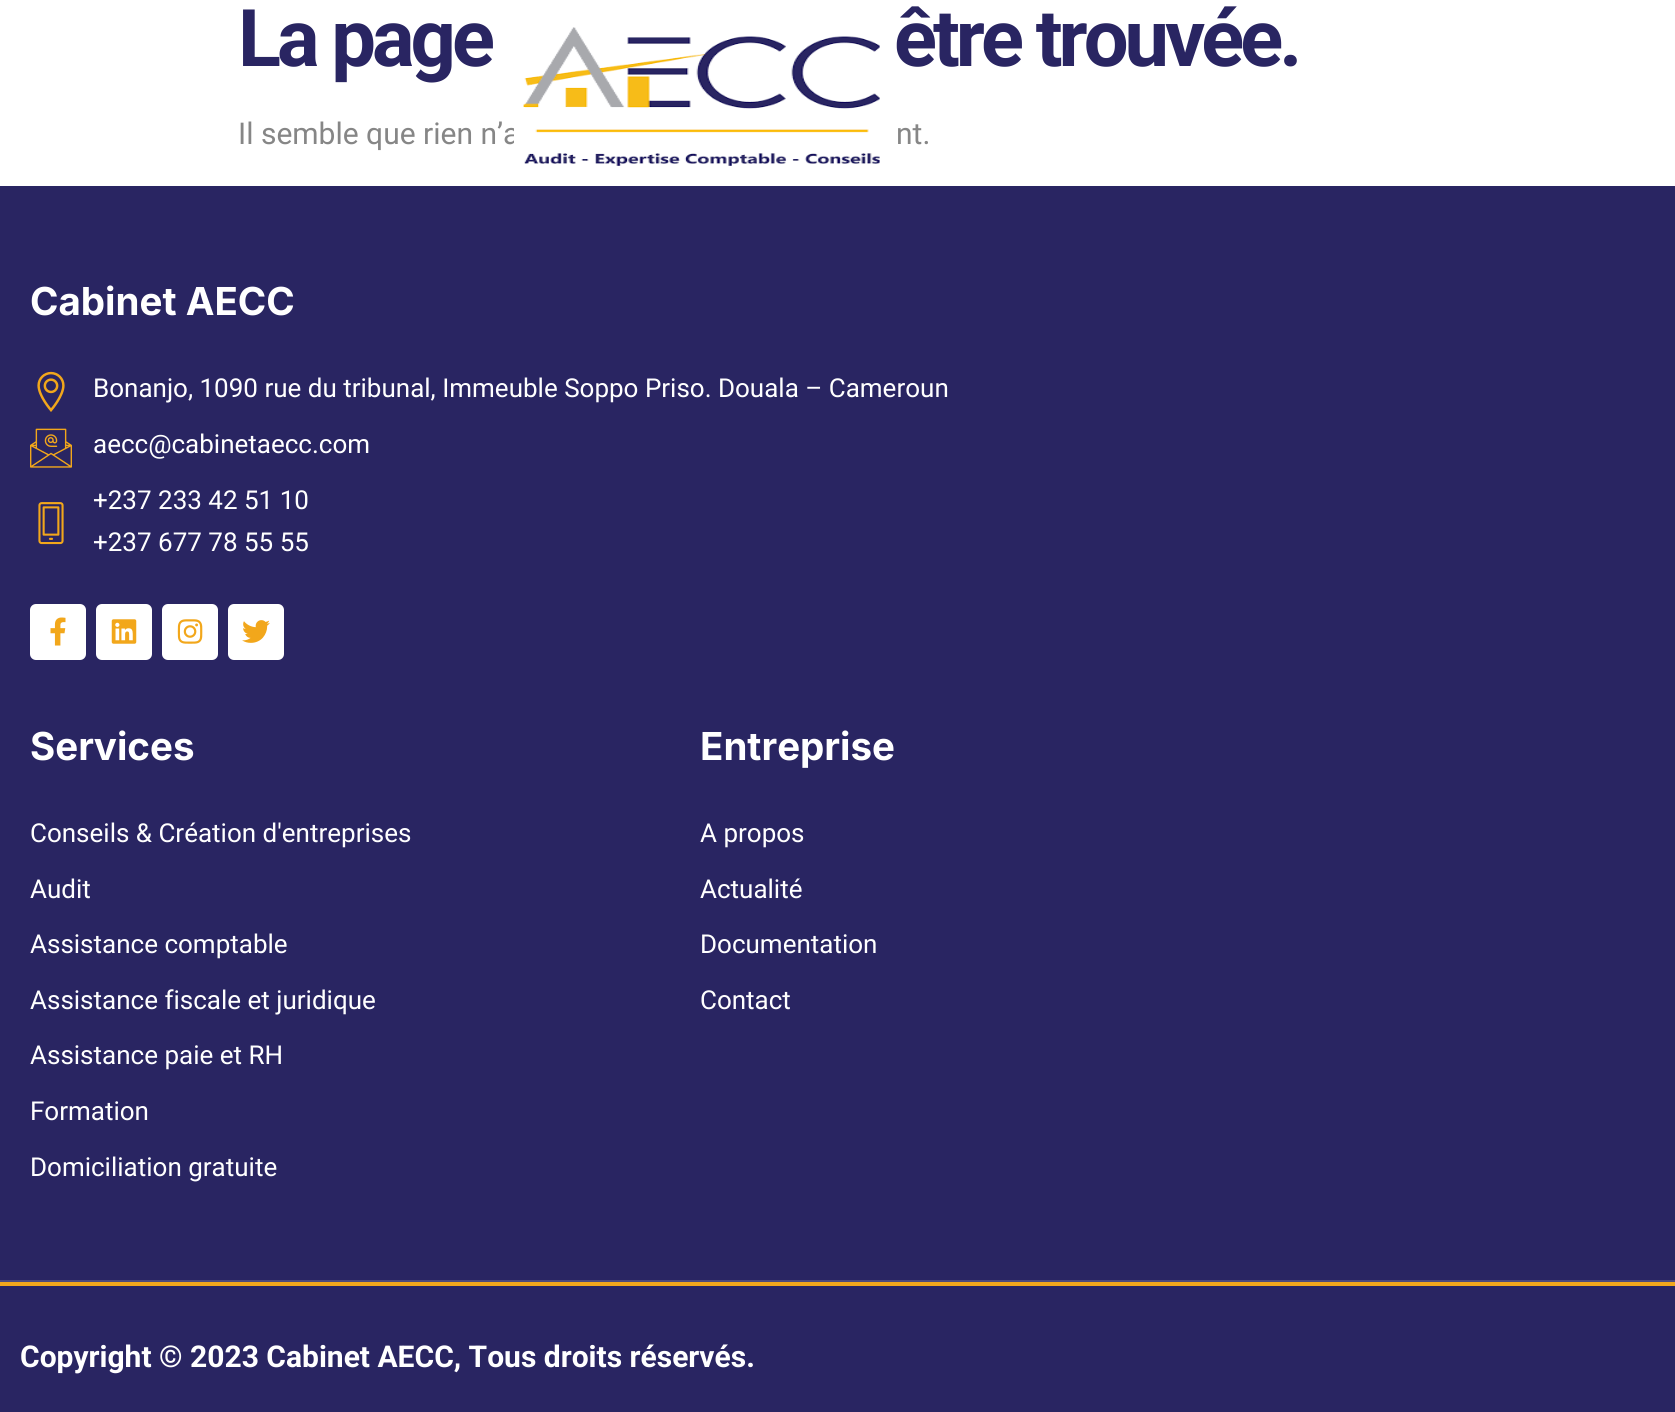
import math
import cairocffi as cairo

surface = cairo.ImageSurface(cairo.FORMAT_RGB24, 1675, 1412)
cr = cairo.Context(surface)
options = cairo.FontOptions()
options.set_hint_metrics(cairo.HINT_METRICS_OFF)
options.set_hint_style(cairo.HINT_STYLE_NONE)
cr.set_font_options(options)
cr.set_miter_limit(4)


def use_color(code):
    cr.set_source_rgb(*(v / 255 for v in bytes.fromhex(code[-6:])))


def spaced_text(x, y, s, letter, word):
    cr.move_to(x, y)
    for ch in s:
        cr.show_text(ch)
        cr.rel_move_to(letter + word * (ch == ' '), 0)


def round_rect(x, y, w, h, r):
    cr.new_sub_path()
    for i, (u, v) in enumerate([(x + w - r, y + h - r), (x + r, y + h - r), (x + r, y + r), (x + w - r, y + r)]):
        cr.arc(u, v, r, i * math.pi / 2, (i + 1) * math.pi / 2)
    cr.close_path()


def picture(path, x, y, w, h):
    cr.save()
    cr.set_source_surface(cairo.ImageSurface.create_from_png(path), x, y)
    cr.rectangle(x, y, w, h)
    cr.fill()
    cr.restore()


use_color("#ffffff")
cr.paint()
cr.select_font_face("Roboto", cairo.FONT_SLANT_NORMAL, cairo.FONT_WEIGHT_BOLD)
cr.set_font_size(79.5)
use_color("#292562")
spaced_text(238, 66, "La page", -4, 0)
spaced_text(894, 66, "être trouvée.", -4, 0)
cr.select_font_face("Roboto")
cr.set_font_size(30)
use_color("#868686")
cr.move_to(238, 144)
cr.show_text("Il semble que rien n’a")
cr.move_to(896, 144)
cr.show_text("nt.")
picture("img1.png", 514, 20, 380, 146)
use_color("#292562")
cr.rectangle(0, 186, 1675, 1226)
cr.fill()
use_color("#4d4a7d")
cr.rectangle(0, 1280, 1675, 2)
cr.fill()
cr.select_font_face("Inter", cairo.FONT_SLANT_NORMAL, cairo.FONT_WEIGHT_BOLD)
cr.set_font_size(38.5)
use_color("#ffffff")
cr.move_to(30, 315)
cr.show_text("Cabinet AECC")
picture("img2.png", 37, 371, 28, 41)
cr.select_font_face("Roboto")
cr.set_font_size(26)
cr.move_to(93, 397)
cr.show_text("Bonanjo, 1090 rue du tribunal, Immeuble Soppo Priso. Douala – Cameroun")
picture("img3.png", 30, 428, 42, 40)
cr.move_to(93, 453)
cr.show_text("aecc@cabinetaecc.com")
picture("img4.png", 38, 502, 26, 43)
cr.move_to(93, 509)
cr.show_text("+237 233 42 51 10")
cr.move_to(93, 551)
cr.show_text("+237 677 78 55 55")
round_rect(30, 604, 56, 56, 6)
cr.fill()
picture("img5.png", 50, 617, 16, 29)
round_rect(96, 604, 56, 56, 6)
cr.fill()
picture("img6.png", 111, 619, 26, 25)
round_rect(162, 604, 56, 56, 6)
cr.fill()
picture("img7.png", 177, 619, 26, 25)
round_rect(228, 604, 56, 56, 6)
cr.fill()
picture("img8.png", 242, 620, 28, 23)
cr.select_font_face("Inter", cairo.FONT_SLANT_NORMAL, cairo.FONT_WEIGHT_BOLD)
cr.set_font_size(38.5)
cr.move_to(30, 760)
cr.show_text("Services")
cr.select_font_face("Roboto")
cr.set_font_size(26)
cr.move_to(30, 842)
cr.show_text("Conseils & Création d'entreprises")
cr.move_to(30, 898)
cr.show_text("Audit")
cr.move_to(30, 953)
cr.show_text("Assistance comptable")
cr.move_to(30, 1009)
cr.show_text("Assistance fiscale et juridique")
cr.move_to(30, 1064)
cr.show_text("Assistance paie et RH")
cr.move_to(30, 1120)
cr.show_text("Formation")
cr.move_to(30, 1176)
cr.show_text("Domiciliation gratuite")
cr.select_font_face("Inter", cairo.FONT_SLANT_NORMAL, cairo.FONT_WEIGHT_BOLD)
cr.set_font_size(38.5)
cr.move_to(700, 760)
cr.show_text("Entreprise")
cr.select_font_face("Roboto")
cr.set_font_size(26)
cr.move_to(700, 842)
cr.show_text("A propos")
cr.move_to(700, 898)
cr.show_text("Actualité")
cr.move_to(700, 953)
cr.show_text("Documentation")
cr.move_to(700, 1009)
cr.show_text("Contact")
use_color("#f2a71c")
cr.rectangle(0, 1282, 1675, 4)
cr.fill()
cr.select_font_face("Roboto", cairo.FONT_SLANT_NORMAL, cairo.FONT_WEIGHT_BOLD)
cr.set_font_size(30)
use_color("#ffffff")
cr.move_to(20, 1367)
cr.show_text("Copyright © 2023 Cabinet AECC, Tous droits réservés.")
surface.write_to_png("result.png")
